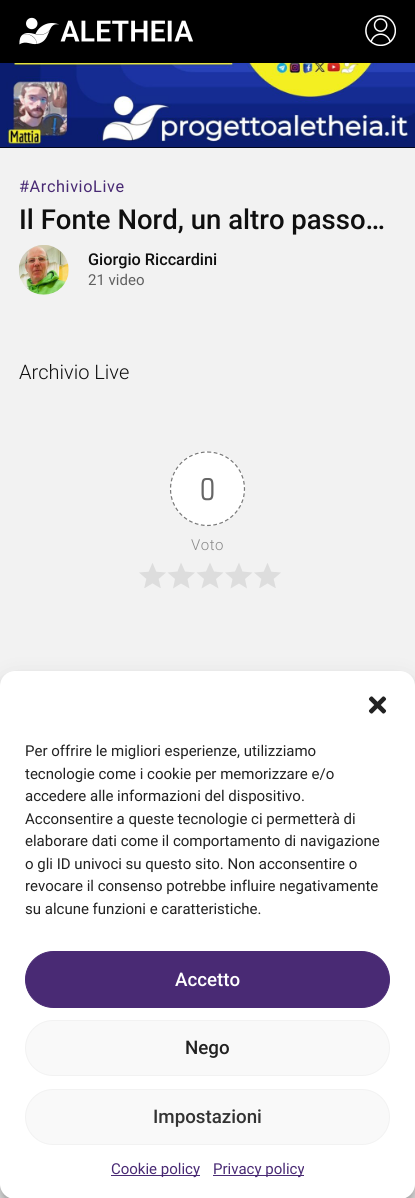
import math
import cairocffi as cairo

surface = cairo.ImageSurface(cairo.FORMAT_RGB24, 415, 1198)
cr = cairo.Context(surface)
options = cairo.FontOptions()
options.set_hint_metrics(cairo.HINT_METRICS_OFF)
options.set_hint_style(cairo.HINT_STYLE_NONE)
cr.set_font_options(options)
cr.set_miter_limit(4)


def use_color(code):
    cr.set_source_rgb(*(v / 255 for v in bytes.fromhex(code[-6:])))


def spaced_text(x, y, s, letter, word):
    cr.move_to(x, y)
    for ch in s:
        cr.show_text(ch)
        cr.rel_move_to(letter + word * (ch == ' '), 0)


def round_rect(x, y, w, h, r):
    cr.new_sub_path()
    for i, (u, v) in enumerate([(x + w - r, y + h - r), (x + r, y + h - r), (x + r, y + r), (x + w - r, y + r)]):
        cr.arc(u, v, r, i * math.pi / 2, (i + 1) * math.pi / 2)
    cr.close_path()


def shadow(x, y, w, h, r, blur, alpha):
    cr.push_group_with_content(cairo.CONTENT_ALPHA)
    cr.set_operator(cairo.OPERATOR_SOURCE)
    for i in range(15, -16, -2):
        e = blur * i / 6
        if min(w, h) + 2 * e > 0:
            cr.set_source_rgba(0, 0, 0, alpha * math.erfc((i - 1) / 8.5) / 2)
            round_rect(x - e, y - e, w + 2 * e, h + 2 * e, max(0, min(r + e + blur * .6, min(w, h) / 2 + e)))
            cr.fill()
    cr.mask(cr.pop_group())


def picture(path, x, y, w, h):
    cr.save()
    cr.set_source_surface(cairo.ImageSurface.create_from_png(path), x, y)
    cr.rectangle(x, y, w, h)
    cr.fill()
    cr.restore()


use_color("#f2f2f2")
cr.paint()
use_color("#000000")
cr.rectangle(0, 0, 415, 63)
cr.fill()
picture("img1.png", 19, 17, 174, 28)
picture("img2.png", 365, 15, 31, 31)
cr.rectangle(0, 147, 415, 1)
cr.fill()
picture("img3.png", 0, 63, 415, 85)
cr.select_font_face("Roboto")
cr.set_font_size(16.25)
use_color("#492a74")
spaced_text(19, 192, "#ArchivioLive", 0.6, 0)
cr.select_font_face("Roboto Medium")
cr.set_font_size(27.5)
use_color("#0f0f0f")
cr.move_to(19, 229)
cr.show_text("Il Fonte Nord, un altro passo…")
picture("img4.png", 18, 245, 51, 50)
cr.set_font_size(16.25)
cr.move_to(88, 265)
cr.show_text("Giorgio Riccardini")
cr.select_font_face("Roboto")
cr.set_font_size(15)
use_color("#606060")
cr.move_to(88, 285)
cr.show_text("21 video")
cr.select_font_face("Roboto Light")
cr.set_font_size(20)
use_color("#0f0f0f")
cr.move_to(19, 379)
cr.show_text("Archivio Live")
use_color("#ffffff")
cr.new_path()
cr.arc(207.5, 488.5, 37.5, 0, 2 * math.pi)
cr.fill()
cr.new_path()
cr.move_to(207.5, 452)
cr.curve_to(228, 452, 244.5, 468.5, 244.5, 489)
cr.curve_to(244.5, 509, 228, 525.5, 207.5, 525.5)
cr.curve_to(187, 525.5, 170.5, 509, 170.5, 489)
cr.curve_to(170.5, 468.5, 187, 452, 207.5, 452)
cr.close_path()
use_color("#777777")
cr.set_line_width(1.2)
cr.set_dash([3.75, 2.5])
cr.stroke()
cr.select_font_face("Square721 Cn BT")
cr.set_font_size(30)
use_color("#666666")
cr.move_to(200, 500)
cr.show_text("0")
cr.select_font_face("Roboto Light")
cr.set_font_size(15)
use_color("#888888")
spaced_text(191, 550, "Voto", 0.5, 0)
picture("img5.png", 139, 563, 27, 25)
use_color("#dddddd")
cr.new_path()
cr.move_to(181, 583.5)
cr.line_to(189.5, 588.5)
cr.line_to(187.5, 579)
cr.line_to(195, 572.5)
cr.line_to(185, 571.5)
cr.line_to(181, 562.5)
cr.line_to(177.5, 571.5)
cr.line_to(167.5, 572.5)
cr.line_to(175, 579)
cr.line_to(173, 588.5)
cr.close_path()
cr.move_to(210, 583.5)
cr.line_to(218.5, 588.5)
cr.line_to(216, 579)
cr.line_to(223.5, 572.5)
cr.line_to(214, 571.5)
cr.line_to(210, 562.5)
cr.line_to(206, 571.5)
cr.line_to(196.5, 572.5)
cr.line_to(204, 579)
cr.line_to(201.5, 588.5)
cr.close_path()
cr.fill()
cr.new_path()
cr.move_to(239, 583.5)
cr.line_to(247, 588.5)
cr.line_to(245, 579)
cr.line_to(252.5, 572.5)
cr.line_to(242.5, 571.5)
cr.line_to(239, 562.5)
cr.line_to(235, 571.5)
cr.line_to(225, 572.5)
cr.line_to(232.5, 579)
cr.line_to(230.5, 588.5)
cr.close_path()
cr.fill()
picture("img5.png", 254, 563, 27, 25)
use_color("#000000")
shadow(0, 679, 415, 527, 15, 4, 0.23)
shadow(0, 684, 415, 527, 15, 12.5, 0.19)
use_color("#ffffff")
round_rect(0, 671, 415, 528, 15)
cr.fill()
picture("img6.png", 368, 696, 19, 18)
cr.select_font_face("Roboto")
use_color("#222222")
cr.move_to(25, 756)
cr.show_text("Per offrire le migliori esperienze, utilizziamo")
cr.move_to(25, 779)
cr.show_text("tecnologie come i cookie per memorizzare e/o")
cr.move_to(25, 801)
cr.show_text("accedere alle informazioni del dispositivo.")
cr.move_to(25, 824)
cr.show_text("Acconsentire a queste tecnologie ci permetterà di")
cr.move_to(25, 846)
cr.show_text("elaborare dati come il comportamento di navigazione")
cr.move_to(25, 869)
cr.show_text("o gli ID univoci su questo sito. Non acconsentire o")
cr.move_to(25, 891)
cr.show_text("revocare il consenso potrebbe influire negativamente")
cr.move_to(25, 914)
cr.show_text("su alcune funzioni e caratteristiche.")
use_color("#492a74")
round_rect(25.5, 951.5, 364, 56, 28)
cr.fill_preserve()
cr.set_line_width(1)
cr.set_dash([])
cr.stroke()
cr.select_font_face("Roboto Medium")
cr.set_font_size(18.75)
use_color("#ffffff")
cr.move_to(175, 986)
cr.show_text("Accetto")
use_color("#f9f9f9")
round_rect(25.5, 1020.5, 364, 55, 27.5)
cr.fill_preserve()
use_color("#f2f2f2")
cr.stroke()
use_color("#222222")
cr.move_to(185, 1054)
cr.show_text("Nego")
use_color("#f9f9f9")
round_rect(25.5, 1089.5, 364, 55, 27.5)
cr.fill_preserve()
use_color("#f2f2f2")
cr.stroke()
use_color("#333333")
cr.move_to(153, 1123)
cr.show_text("Impostazioni")
use_color("#492a74")
cr.rectangle(111, 1175, 89, 1)
cr.fill()
cr.select_font_face("Roboto")
cr.set_font_size(15)
cr.move_to(111, 1174)
cr.show_text("Cookie policy")
cr.rectangle(213, 1175, 91, 1)
cr.fill()
cr.move_to(213, 1174)
cr.show_text("Privacy policy")
surface.write_to_png("result.png")
